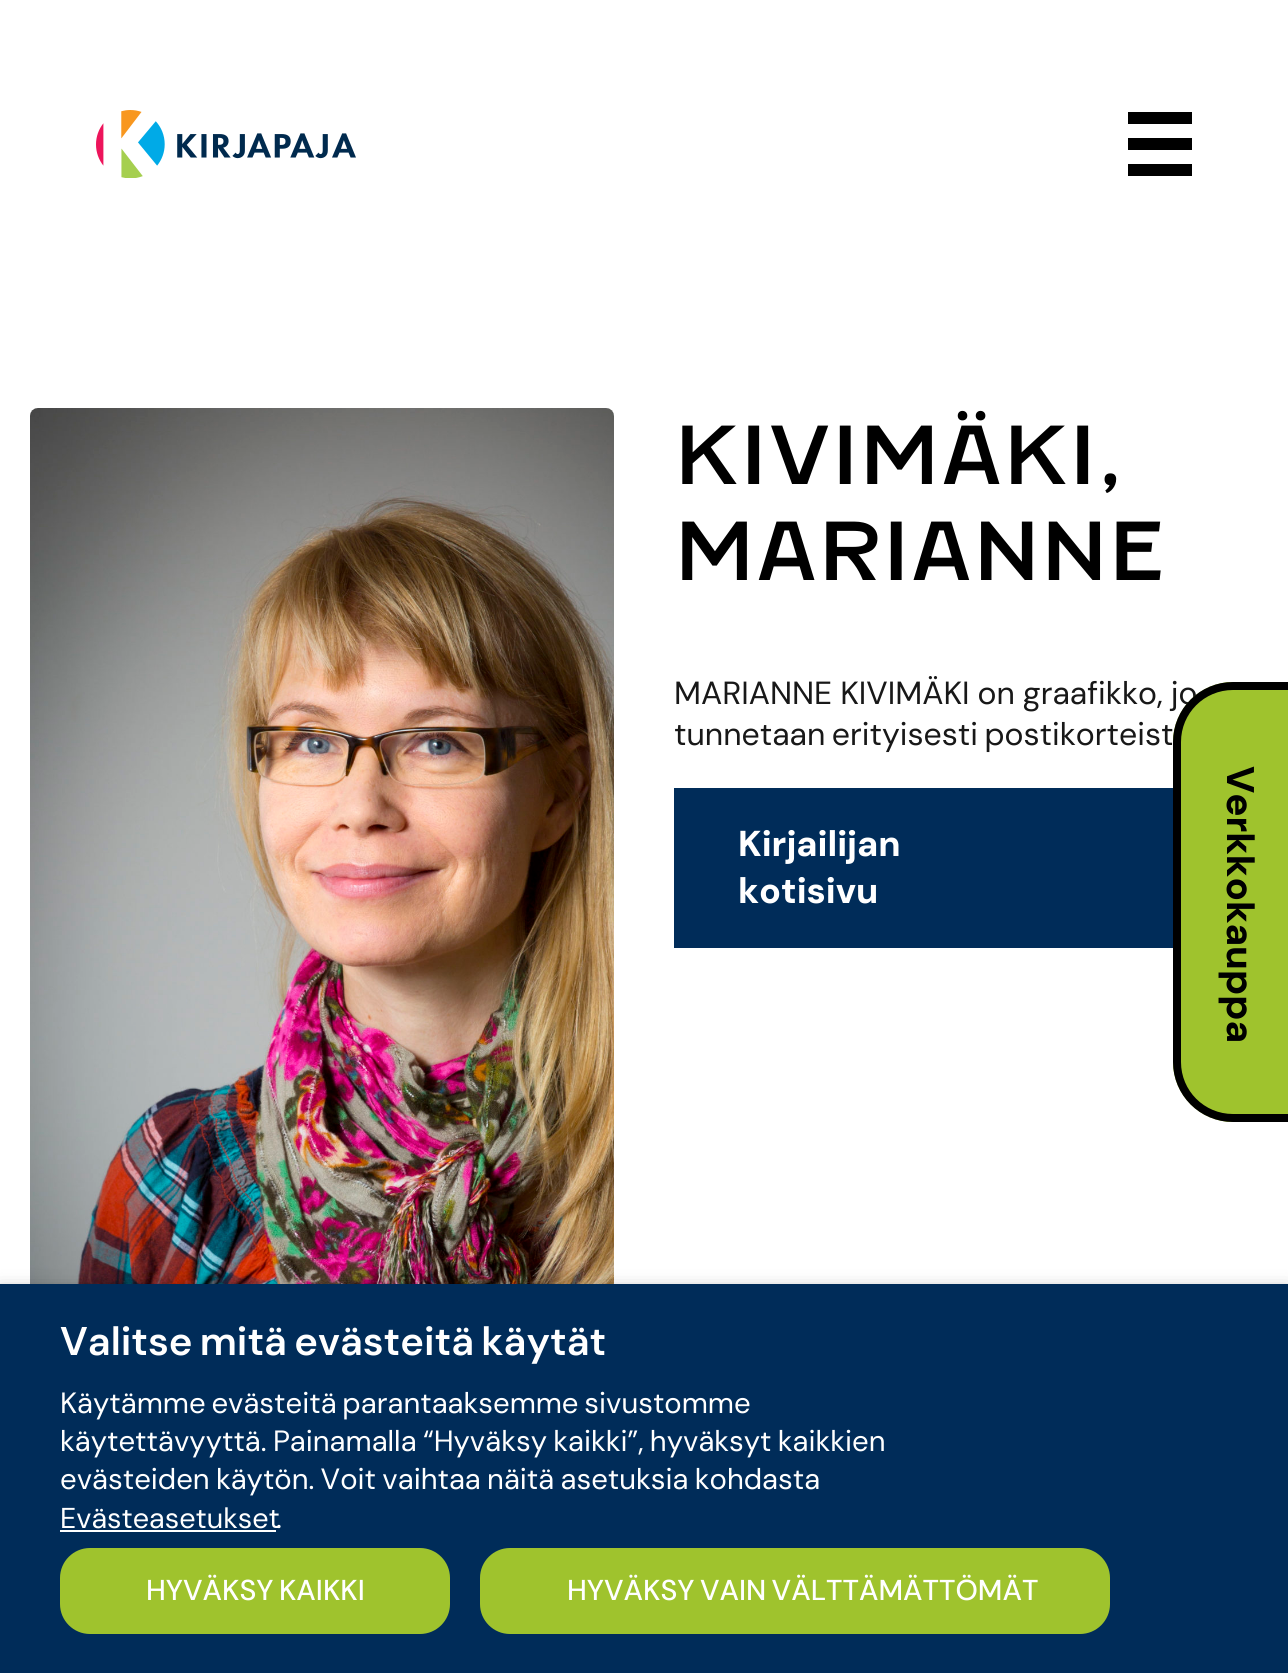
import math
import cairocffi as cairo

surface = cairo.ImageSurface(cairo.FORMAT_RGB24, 1288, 1673)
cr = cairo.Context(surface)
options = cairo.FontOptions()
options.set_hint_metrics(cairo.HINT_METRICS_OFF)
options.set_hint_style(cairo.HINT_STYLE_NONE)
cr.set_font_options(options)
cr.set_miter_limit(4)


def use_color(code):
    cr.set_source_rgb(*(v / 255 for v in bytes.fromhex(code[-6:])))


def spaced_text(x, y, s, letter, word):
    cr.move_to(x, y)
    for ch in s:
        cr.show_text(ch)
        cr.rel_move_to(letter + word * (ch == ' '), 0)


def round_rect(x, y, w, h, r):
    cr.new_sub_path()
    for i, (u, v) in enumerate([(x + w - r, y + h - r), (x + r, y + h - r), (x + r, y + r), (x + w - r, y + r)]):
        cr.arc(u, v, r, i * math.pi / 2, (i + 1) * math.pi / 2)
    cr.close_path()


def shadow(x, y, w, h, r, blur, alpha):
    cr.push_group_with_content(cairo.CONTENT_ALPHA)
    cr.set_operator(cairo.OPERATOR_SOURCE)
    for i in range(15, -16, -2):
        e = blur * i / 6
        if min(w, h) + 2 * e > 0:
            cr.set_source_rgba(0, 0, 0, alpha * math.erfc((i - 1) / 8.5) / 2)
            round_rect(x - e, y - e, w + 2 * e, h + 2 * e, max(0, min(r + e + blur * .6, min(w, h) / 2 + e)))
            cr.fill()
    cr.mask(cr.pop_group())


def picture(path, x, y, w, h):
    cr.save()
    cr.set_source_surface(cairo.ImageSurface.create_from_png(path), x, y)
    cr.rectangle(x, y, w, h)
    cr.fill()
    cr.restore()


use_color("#ffffff")
cr.paint()
picture("img1.png", 96, 110, 260, 68)
use_color("#000000")
cr.rectangle(1128, 112, 64, 12)
cr.fill()
cr.rectangle(1128, 138, 64, 12)
cr.fill()
cr.rectangle(1128, 164, 64, 12)
cr.fill()
picture("img2.png", 30, 408, 584, 876)
cr.select_font_face("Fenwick")
cr.set_font_size(80)
cr.move_to(674, 484)
cr.show_text("KIVIMÄKI,")
cr.move_to(674, 580)
cr.show_text("MARIANNE")
cr.select_font_face("DM Sans")
cr.set_font_size(32)
use_color("#181818")
spaced_text(674, 704, "MARIANNE KIVIMÄKI on graafikko, jo", 0, -0.5)
spaced_text(674, 745, "tunnetaan erityisesti postikorteist", 0, -2)
use_color("#002c59")
cr.rectangle(674, 788, 499, 160)
cr.fill()
cr.select_font_face("DM Sans ExtraBold")
cr.set_font_size(36)
use_color("#ffffff")
cr.move_to(738, 856)
cr.show_text("Kirjailijan")
cr.move_to(738, 903)
cr.show_text("kotisivu")
use_color("#9fc32d")
cr.new_path()
cr.move_to(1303, 682)
cr.line_to(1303, 1122)
cr.line_to(1233, 1122)
cr.curve_to(1200, 1122, 1173, 1095, 1173, 1062)
cr.line_to(1173, 742)
cr.curve_to(1173, 709, 1200, 682, 1233, 682)
cr.close_path()
cr.fill()
cr.new_path()
cr.move_to(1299, 686)
cr.line_to(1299, 1118)
cr.line_to(1233, 1118)
cr.curve_to(1202, 1118, 1177, 1093, 1177, 1062)
cr.line_to(1177, 742)
cr.curve_to(1177, 711, 1202, 686, 1233, 686)
cr.close_path()
use_color("#000000")
cr.set_line_width(8)
cr.stroke()
cr.select_font_face("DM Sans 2 ExtraBold")
cr.set_font_size(38.5)
cr.save()
cr.translate(1227, 766)
cr.rotate(90 * math.pi / 180)
cr.move_to(0, 0)
cr.show_text("Verkkokauppa")
cr.restore()
use_color("#000000")
shadow(0, 1294, 1288, 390, 0, 10, 0.5)
use_color("#002c59")
cr.rectangle(0, 1284, 1288, 389)
cr.fill()
cr.select_font_face("DM Sans SemiBold")
cr.set_font_size(40)
use_color("#ffffff")
spaced_text(60, 1355, "Valitse mitä evästeitä käytät", 0, -2.5)
cr.select_font_face("DM Sans 2")
cr.set_font_size(29.3)
spaced_text(60, 1413, "Käytämme evästeitä parantaaksemme sivustomme", 0, -2)
spaced_text(60, 1451, "käytettävyyttä. Painamalla “Hyväksy kaikki”, hyväksyt kaikkien", 0, -1.5)
spaced_text(60, 1489, "evästeiden käytön. Voit vaihtaa näitä asetuksia kohdasta", 0, -1.5)
cr.move_to(276, 1528)
cr.show_text(".")
cr.select_font_face("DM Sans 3")
cr.set_font_size(28.75)
cr.move_to(60, 1528)
cr.show_text("Evästeasetukset")
cr.rectangle(60, 1530, 216, 2)
cr.fill()
use_color("#9fc32d")
round_rect(60, 1548, 390, 86, 30)
cr.fill()
cr.select_font_face("DM Sans Medium")
use_color("#ffffff")
spaced_text(146, 1600, "HYVÄKSY KAIKKI", 0, -2)
use_color("#9fc32d")
round_rect(480, 1548, 630, 86, 30)
cr.fill()
use_color("#ffffff")
spaced_text(567, 1600, "HYVÄKSY VAIN VÄLTTÄMÄTTÖMÄT", 0, -2)
surface.write_to_png("result.png")
